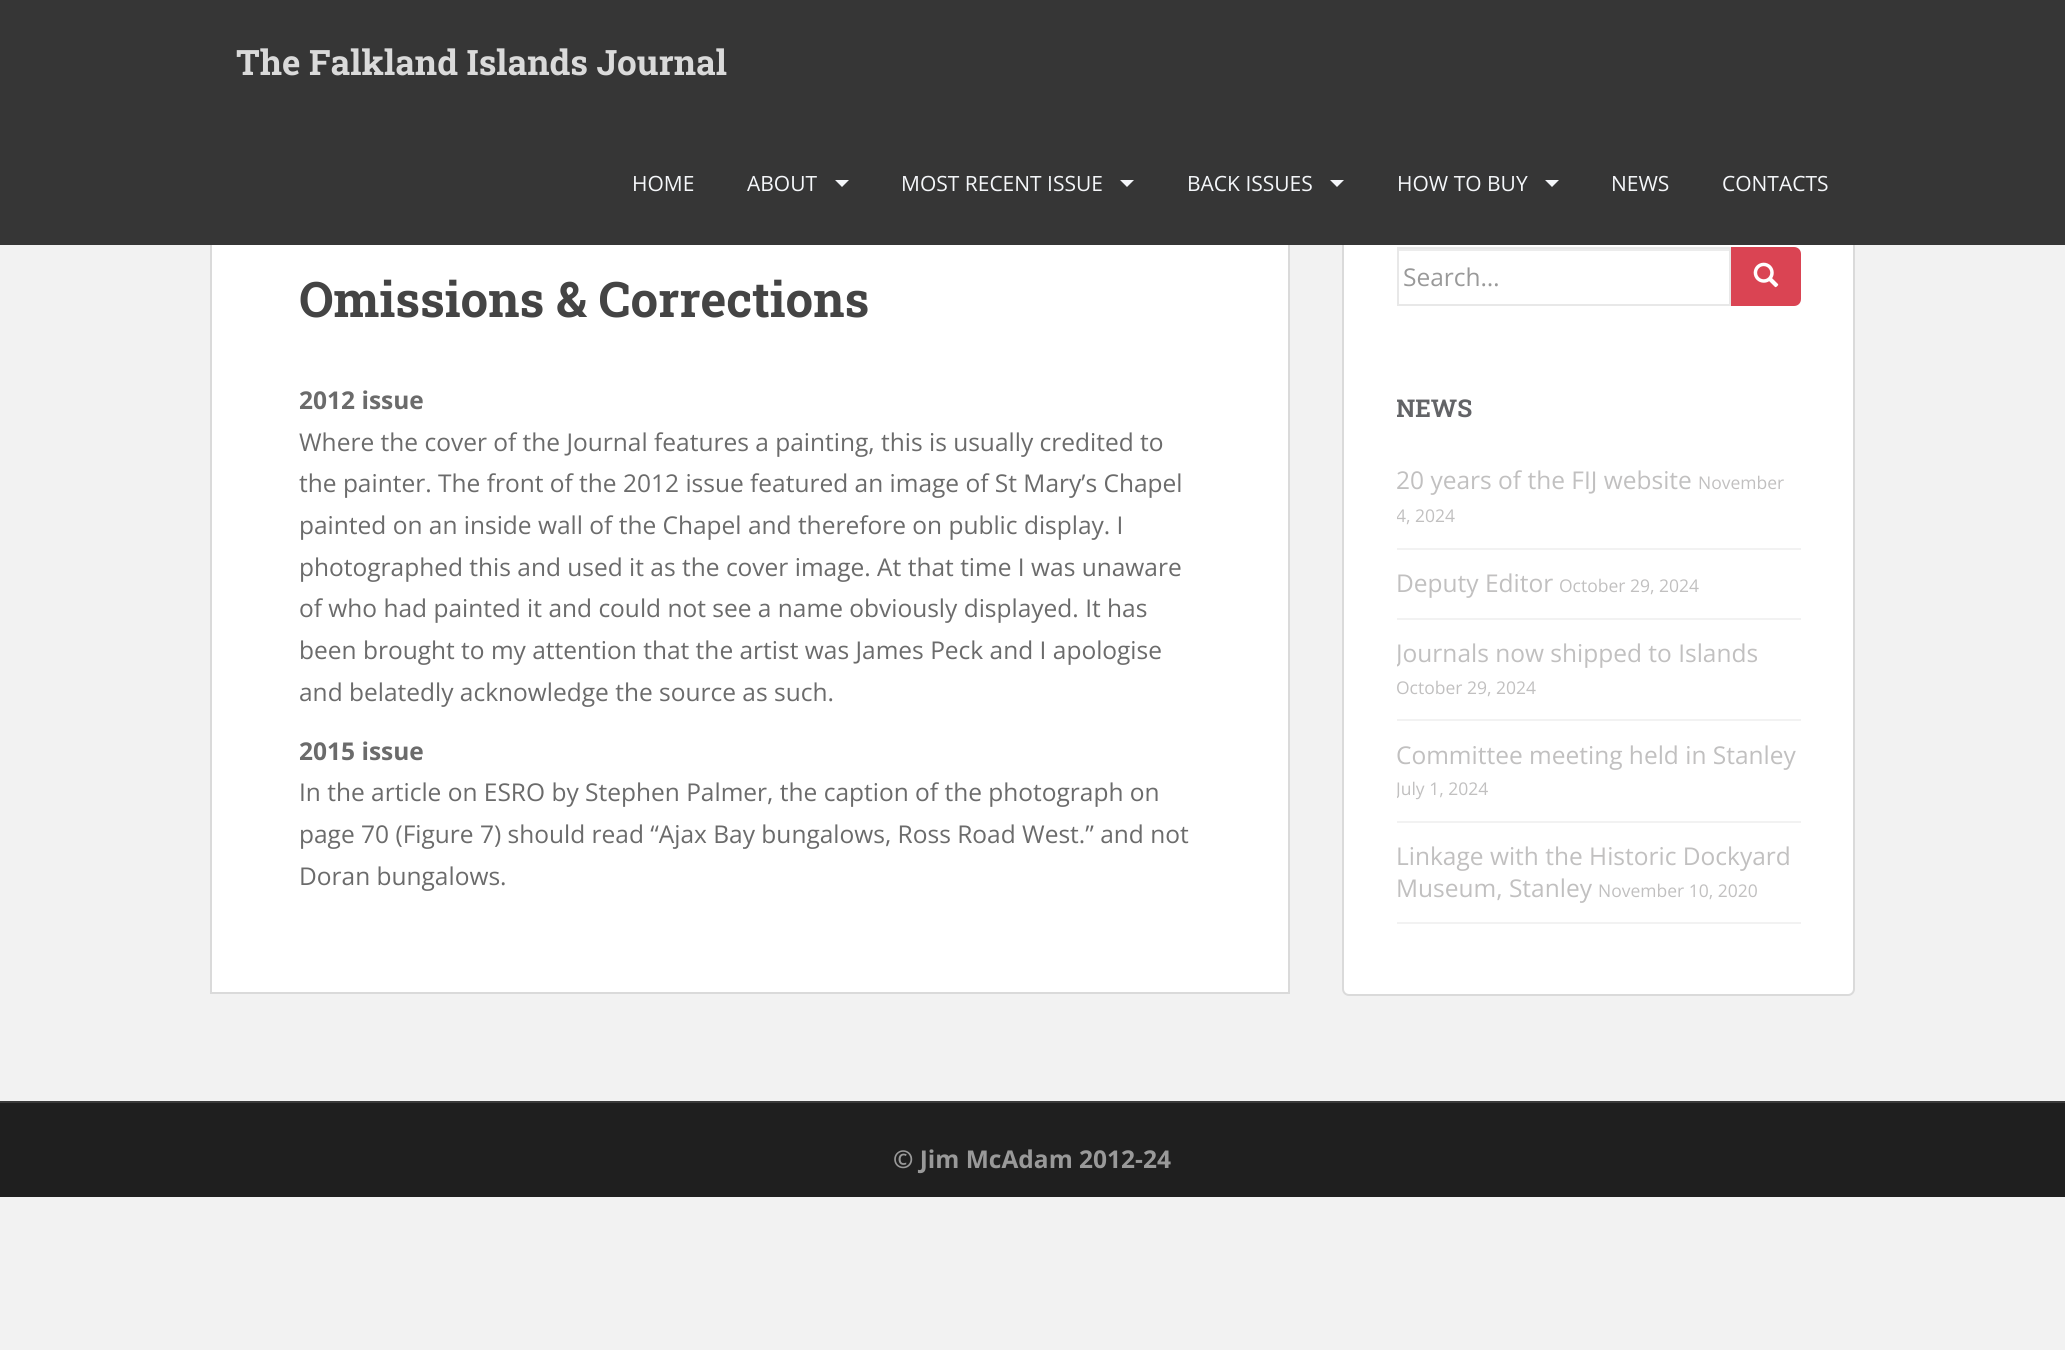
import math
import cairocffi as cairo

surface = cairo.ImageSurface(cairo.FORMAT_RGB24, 2065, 1350)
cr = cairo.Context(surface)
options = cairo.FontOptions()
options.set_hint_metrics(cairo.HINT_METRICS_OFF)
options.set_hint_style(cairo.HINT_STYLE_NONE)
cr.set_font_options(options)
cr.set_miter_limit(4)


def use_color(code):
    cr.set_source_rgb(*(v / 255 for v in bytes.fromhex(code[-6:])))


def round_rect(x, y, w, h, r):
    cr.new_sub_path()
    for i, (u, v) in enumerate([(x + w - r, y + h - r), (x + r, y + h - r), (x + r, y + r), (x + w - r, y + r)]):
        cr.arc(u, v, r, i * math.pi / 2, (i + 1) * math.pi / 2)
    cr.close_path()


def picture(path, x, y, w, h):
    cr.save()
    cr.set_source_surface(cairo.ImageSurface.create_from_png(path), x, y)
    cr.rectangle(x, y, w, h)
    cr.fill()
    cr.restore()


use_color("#f2f2f2")
cr.paint()
use_color("#ffffff")
cr.rectangle(212, 245, 1076, 747)
cr.fill()
cr.rectangle(211, 194, 1078, 799)
use_color("#dadada")
cr.stroke()
use_color("#ffffff")
round_rect(1343, 194, 511, 801, 6)
cr.fill_preserve()
use_color("#dadada")
cr.stroke()
use_color("#363636")
cr.rectangle(0, 0, 2065, 245)
cr.fill()
cr.select_font_face("Roboto Slab", cairo.FONT_SLANT_NORMAL, cairo.FONT_WEIGHT_BOLD)
cr.set_font_size(35)
use_color("#dadada")
cr.move_to(236, 75)
cr.show_text("The Falkland Islands Journal")
cr.select_font_face("Open Sans")
cr.set_font_size(21)
use_color("#f5f7fa")
cr.move_to(632, 191)
cr.show_text("HOME")
cr.move_to(747, 191)
cr.show_text("ABOUT")
cr.new_path()
cr.move_to(835, 180)
cr.line_to(849, 180)
cr.line_to(842, 187)
cr.close_path()
cr.fill()
cr.move_to(901, 191)
cr.show_text("MOST RECENT ISSUE")
cr.new_path()
cr.move_to(1120, 180)
cr.line_to(1134, 180)
cr.line_to(1127, 187)
cr.close_path()
cr.fill()
cr.move_to(1187, 191)
cr.show_text("BACK ISSUES")
cr.new_path()
cr.move_to(1330, 180)
cr.line_to(1344, 180)
cr.line_to(1337, 187)
cr.close_path()
cr.fill()
cr.move_to(1397, 191)
cr.show_text("HOW TO BUY")
cr.new_path()
cr.move_to(1545, 180)
cr.line_to(1559, 180)
cr.line_to(1552, 187)
cr.close_path()
cr.fill()
cr.move_to(1611, 191)
cr.show_text("NEWS")
cr.move_to(1722, 191)
cr.show_text("CONTACTS")
cr.select_font_face("Roboto Slab", cairo.FONT_SLANT_NORMAL, cairo.FONT_WEIGHT_BOLD)
cr.set_font_size(49)
use_color("#444444")
cr.move_to(299, 317)
cr.show_text("Omissions & Corrections")
cr.select_font_face("Open Sans", cairo.FONT_SLANT_NORMAL, cairo.FONT_WEIGHT_BOLD)
cr.set_font_size(24.5)
use_color("#6b6b6b")
cr.move_to(299, 409)
cr.show_text("2012 issue")
cr.select_font_face("Open Sans")
cr.move_to(299, 451)
cr.show_text("Where the cover of the Journal features a painting, this is usually credited to")
cr.move_to(299, 492)
cr.show_text("the painter. The front of the 2012 issue featured an image of St Mary’s Chapel")
cr.move_to(299, 534)
cr.show_text("painted on an inside wall of the Chapel and therefore on public display. I")
cr.move_to(299, 576)
cr.show_text("photographed this and used it as the cover image. At that time I was unaware")
cr.move_to(299, 617)
cr.show_text("of who had painted it and could not see a name obviously displayed. It has")
cr.move_to(299, 659)
cr.show_text("been brought to my attention that the artist was James Peck and I apologise")
cr.move_to(299, 701)
cr.show_text("and belatedly acknowledge the source as such.")
cr.select_font_face("Open Sans", cairo.FONT_SLANT_NORMAL, cairo.FONT_WEIGHT_BOLD)
cr.move_to(299, 760)
cr.show_text("2015 issue")
cr.select_font_face("Open Sans")
cr.move_to(299, 801)
cr.show_text("In the article on ESRO by Stephen Palmer, the caption of the photograph on")
cr.move_to(299, 843)
cr.show_text("page 70 (Figure 7) should read “Ajax Bay bungalows, Ross Road West.” and not")
cr.move_to(299, 885)
cr.show_text("Doran bungalows.")
use_color("#ececec")
cr.rectangle(1398, 249, 331, 2)
cr.fill()
cr.rectangle(1398, 248, 332, 57)
use_color("#e8e8e8")
cr.stroke()
use_color("#999999")
cr.move_to(1403, 286)
cr.show_text("Search…")
use_color("#da4453")
cr.new_path()
cr.move_to(1732, 248)
cr.line_to(1794, 248)
cr.curve_to(1797.5, 248, 1800, 250.5, 1800, 254)
cr.line_to(1800, 299)
cr.curve_to(1800, 302.5, 1797.5, 305, 1794, 305)
cr.line_to(1732, 305)
cr.close_path()
cr.fill_preserve()
cr.stroke()
picture("img1.png", 1753, 262, 26, 26)
cr.save()
cr.rectangle(1397, 394, 404, 548)
cr.clip()
cr.select_font_face("Roboto Slab", cairo.FONT_SLANT_NORMAL, cairo.FONT_WEIGHT_BOLD)
use_color("#636467")
cr.move_to(1396, 417)
cr.show_text("NEWS")
cr.restore()
use_color("#f2f2f2")
cr.rectangle(1397, 548, 404, 2)
cr.fill()
use_color("#c1c0c0")
cr.move_to(1396, 489)
cr.show_text("20 years of the FIJ website")
cr.set_font_size(17.5)
cr.move_to(1698, 489)
cr.show_text("November")
cr.save()
cr.rectangle(1397, 394, 404, 548)
cr.clip()
cr.move_to(1396, 522)
cr.show_text("4, 2024")
cr.restore()
use_color("#f2f2f2")
cr.rectangle(1397, 618, 404, 2)
cr.fill()
cr.set_font_size(24.5)
use_color("#c1c0c0")
cr.move_to(1396, 592)
cr.show_text("Deputy Editor")
cr.set_font_size(17.5)
cr.move_to(1559, 592)
cr.show_text("October 29, 2024")
use_color("#f2f2f2")
cr.rectangle(1397, 719, 404, 2)
cr.fill()
cr.save()
cr.rectangle(1397, 394, 404, 548)
cr.clip()
cr.set_font_size(24.5)
use_color("#c1c0c0")
cr.move_to(1396, 662)
cr.show_text("Journals now shipped to Islands")
cr.restore()
use_color("#c1c0c0")
cr.move_to(1396, 694)
cr.show_text("October 29, 2024")
use_color("#f2f2f2")
cr.rectangle(1397, 821, 404, 2)
cr.fill()
cr.set_font_size(24.5)
use_color("#c1c0c0")
cr.move_to(1396, 764)
cr.show_text("Committee meeting held in Stanley")
cr.save()
cr.rectangle(1397, 394, 404, 548)
cr.clip()
cr.set_font_size(17.5)
cr.move_to(1396, 795)
cr.show_text("July 1, 2024")
cr.restore()
use_color("#f2f2f2")
cr.rectangle(1397, 922, 404, 2)
cr.fill()
use_color("#c1c0c0")
cr.move_to(1396, 865)
cr.show_text("Linkage with the Historic Dockyard")
cr.move_to(1396, 897)
cr.show_text("Museum, Stanley")
cr.set_font_size(17.5)
cr.move_to(1598, 897)
cr.show_text("November 10, 2020")
use_color("#1f1f1f")
cr.rectangle(0, 1103, 2065, 94)
cr.fill()
use_color("#3a3a3a")
cr.rectangle(0, 1101, 2065, 2)
cr.fill()
cr.select_font_face("Open Sans", cairo.FONT_SLANT_NORMAL, cairo.FONT_WEIGHT_BOLD)
cr.set_font_size(24.5)
use_color("#999999")
cr.move_to(893, 1168)
cr.show_text("© Jim McAdam 2012-24")
surface.write_to_png("result.png")
